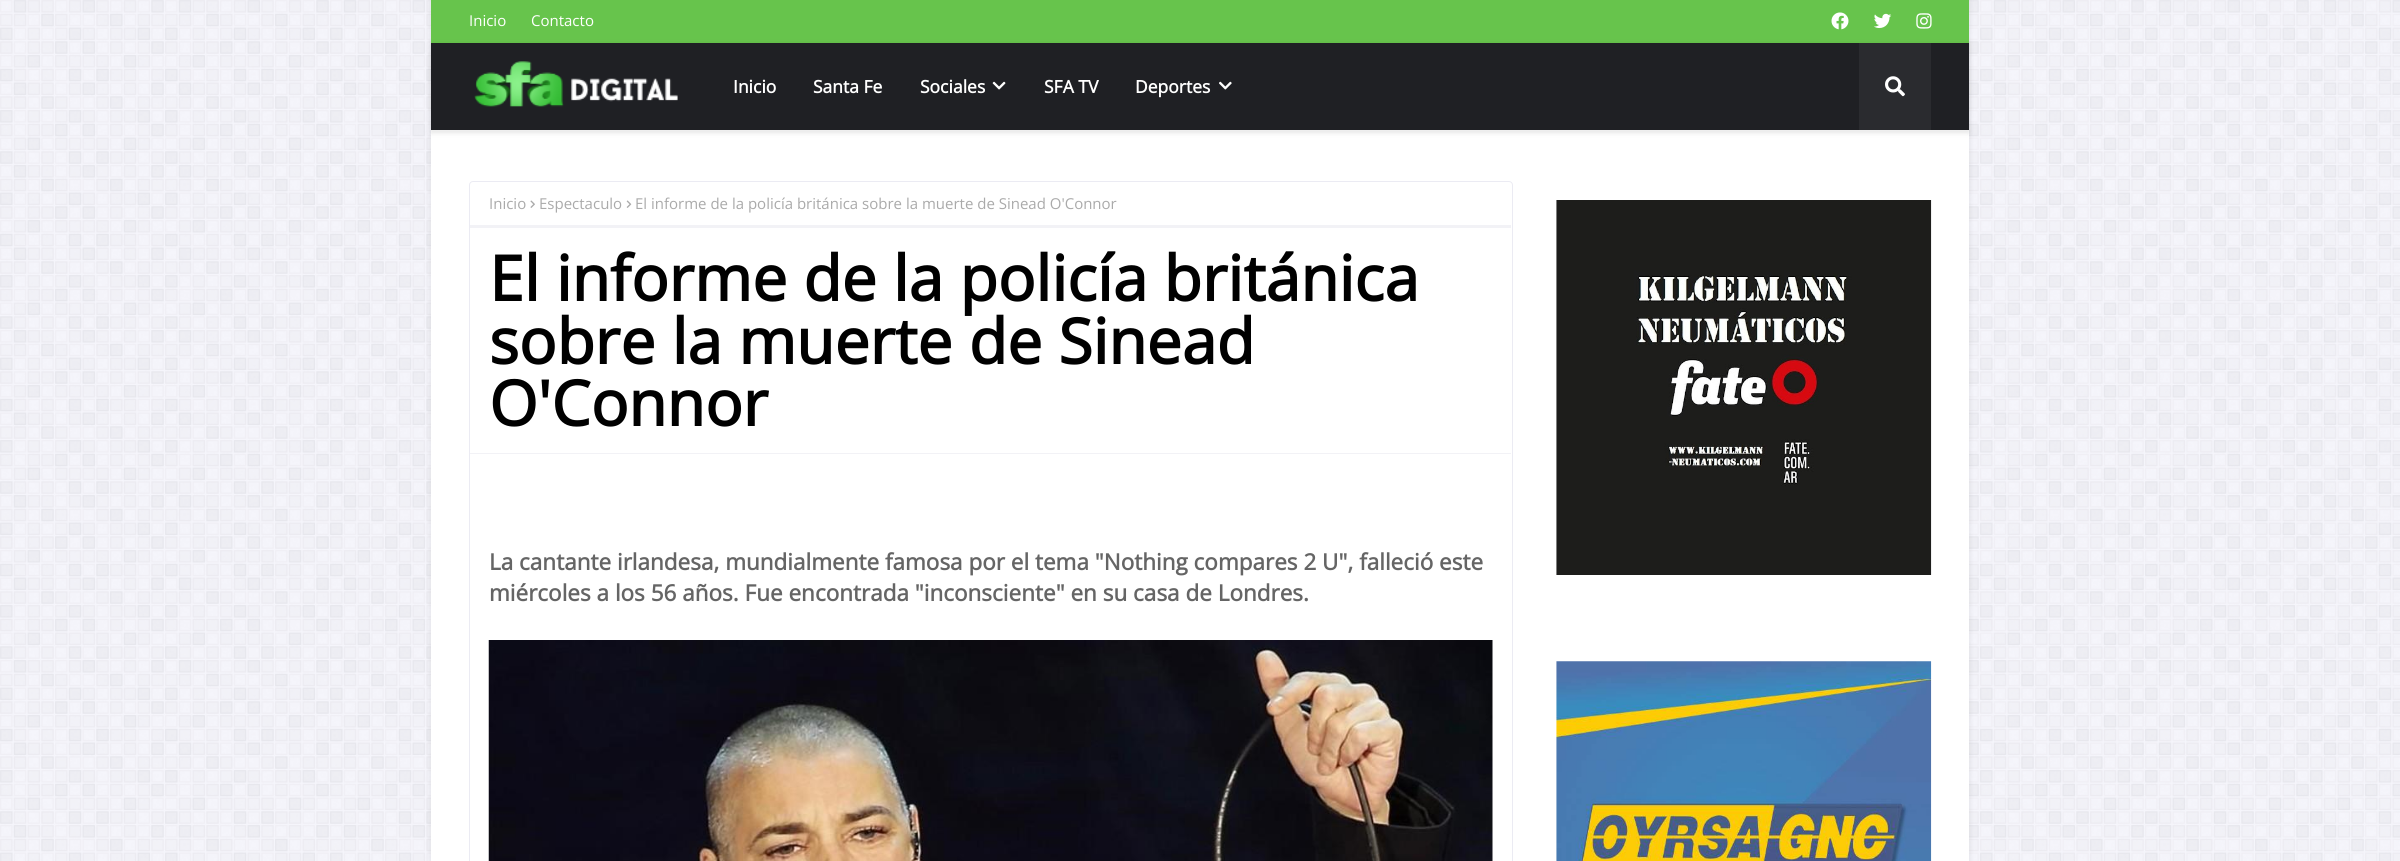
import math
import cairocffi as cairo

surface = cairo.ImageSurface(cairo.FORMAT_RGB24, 2400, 861)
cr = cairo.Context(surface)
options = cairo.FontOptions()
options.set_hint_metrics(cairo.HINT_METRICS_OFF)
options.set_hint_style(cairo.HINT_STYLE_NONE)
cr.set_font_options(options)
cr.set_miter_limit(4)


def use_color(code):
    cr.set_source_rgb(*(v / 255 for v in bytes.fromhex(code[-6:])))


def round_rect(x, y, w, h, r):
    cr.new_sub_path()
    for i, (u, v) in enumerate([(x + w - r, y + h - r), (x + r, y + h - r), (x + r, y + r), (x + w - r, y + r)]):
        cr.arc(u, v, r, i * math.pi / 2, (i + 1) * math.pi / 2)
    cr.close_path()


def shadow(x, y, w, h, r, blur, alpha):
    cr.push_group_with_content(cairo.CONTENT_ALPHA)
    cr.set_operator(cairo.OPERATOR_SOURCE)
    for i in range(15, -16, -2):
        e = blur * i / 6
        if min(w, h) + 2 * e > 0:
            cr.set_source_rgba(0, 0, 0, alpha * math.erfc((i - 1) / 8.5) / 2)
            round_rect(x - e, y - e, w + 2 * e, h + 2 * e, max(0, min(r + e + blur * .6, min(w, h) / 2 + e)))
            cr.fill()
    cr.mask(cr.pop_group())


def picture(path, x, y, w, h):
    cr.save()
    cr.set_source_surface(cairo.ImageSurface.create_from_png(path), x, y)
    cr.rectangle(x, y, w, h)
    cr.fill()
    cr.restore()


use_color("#f7f7ff")
cr.paint()
picture("img1.png", 0, 0, 2400, 861)
use_color("#000000")
shadow(431, 0, 1538, 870, 0, 3, 0.1)
use_color("#ffffff")
cr.rectangle(431, 131, 1538, 730)
cr.fill()
use_color("#67c44c")
cr.rectangle(431, 0, 1538, 43)
cr.fill()
cr.select_font_face("Open Sans")
cr.set_font_size(15)
use_color("#ffffff")
cr.move_to(469, 26)
cr.show_text("Inicio")
cr.move_to(531, 26)
cr.show_text("Contacto")
picture("img2.png", 1831, 12, 18, 18)
picture("img3.png", 1874, 13, 18, 16)
picture("img4.png", 1916, 13, 16, 16)
use_color("#000000")
shadow(431, 44, 1538, 89, 0, 2.5, 0.1)
use_color("#1f2024")
cr.rectangle(431, 43, 1538, 87)
cr.fill()
use_color("#eeeeee")
cr.rectangle(431, 130, 1538, 1)
cr.fill()
picture("img5.png", 474, 61, 204, 46)
cr.select_font_face("Open Sans", cairo.FONT_SLANT_NORMAL, cairo.FONT_WEIGHT_BOLD)
cr.set_font_size(17.5)
use_color("#ffffff")
cr.move_to(733, 93)
cr.show_text("Inicio")
cr.move_to(813, 93)
cr.show_text("Santa Fe")
cr.move_to(920, 93)
cr.show_text("Sociales")
picture("img6.png", 992, 81, 14, 9)
cr.move_to(1044, 93)
cr.show_text("SFA TV")
cr.move_to(1135, 93)
cr.show_text("Deportes")
picture("img7.png", 1219, 81, 13, 9)
use_color("#2a2b2f")
cr.rectangle(1859, 43, 72, 87)
cr.fill()
picture("img8.png", 1885, 76, 20, 21)
round_rect(469.5, 181.5, 1043, 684, 3.5)
use_color("#ebebf3")
cr.set_line_width(1)
cr.stroke()
use_color("#f2f2f6")
cr.rectangle(470, 225, 1041, 3)
cr.fill()
cr.select_font_face("Open Sans")
cr.set_font_size(15)
use_color("#aaaaaa")
cr.move_to(489, 209)
cr.show_text("Inicio")
picture("img9.png", 530, 200, 5, 8)
cr.move_to(539, 209)
cr.show_text("Espectaculo")
picture("img10.png", 626, 200, 6, 8)
cr.move_to(635, 209)
cr.show_text("El informe de la policía británica sobre la muerte de Sinead O'Connor")
cr.select_font_face("Open Sans", cairo.FONT_SLANT_NORMAL, cairo.FONT_WEIGHT_BOLD)
cr.set_font_size(62.5)
use_color("#000000")
cr.move_to(489, 301)
cr.show_text("El informe de la policía británica")
cr.move_to(489, 364)
cr.show_text("sobre la muerte de Sinead")
cr.move_to(489, 426)
cr.show_text("O'Connor")
use_color("#f2f2f6")
cr.rectangle(470, 453, 1041, 1)
cr.fill()
cr.set_font_size(22.5)
use_color("#656565")
cr.move_to(489, 570)
cr.show_text("La cantante irlandesa, mundialmente famosa por el tema \"Nothing compares 2 U\", falleció este")
cr.move_to(489, 601)
cr.show_text("miércoles a los 56 años. Fue encontrada \"inconsciente\" en su casa de Londres.")
picture("img11.png", 488, 640, 1005, 221)
picture("img12.png", 1556, 200, 376, 375)
picture("img13.png", 1556, 661, 376, 200)
surface.write_to_png("result.png")
